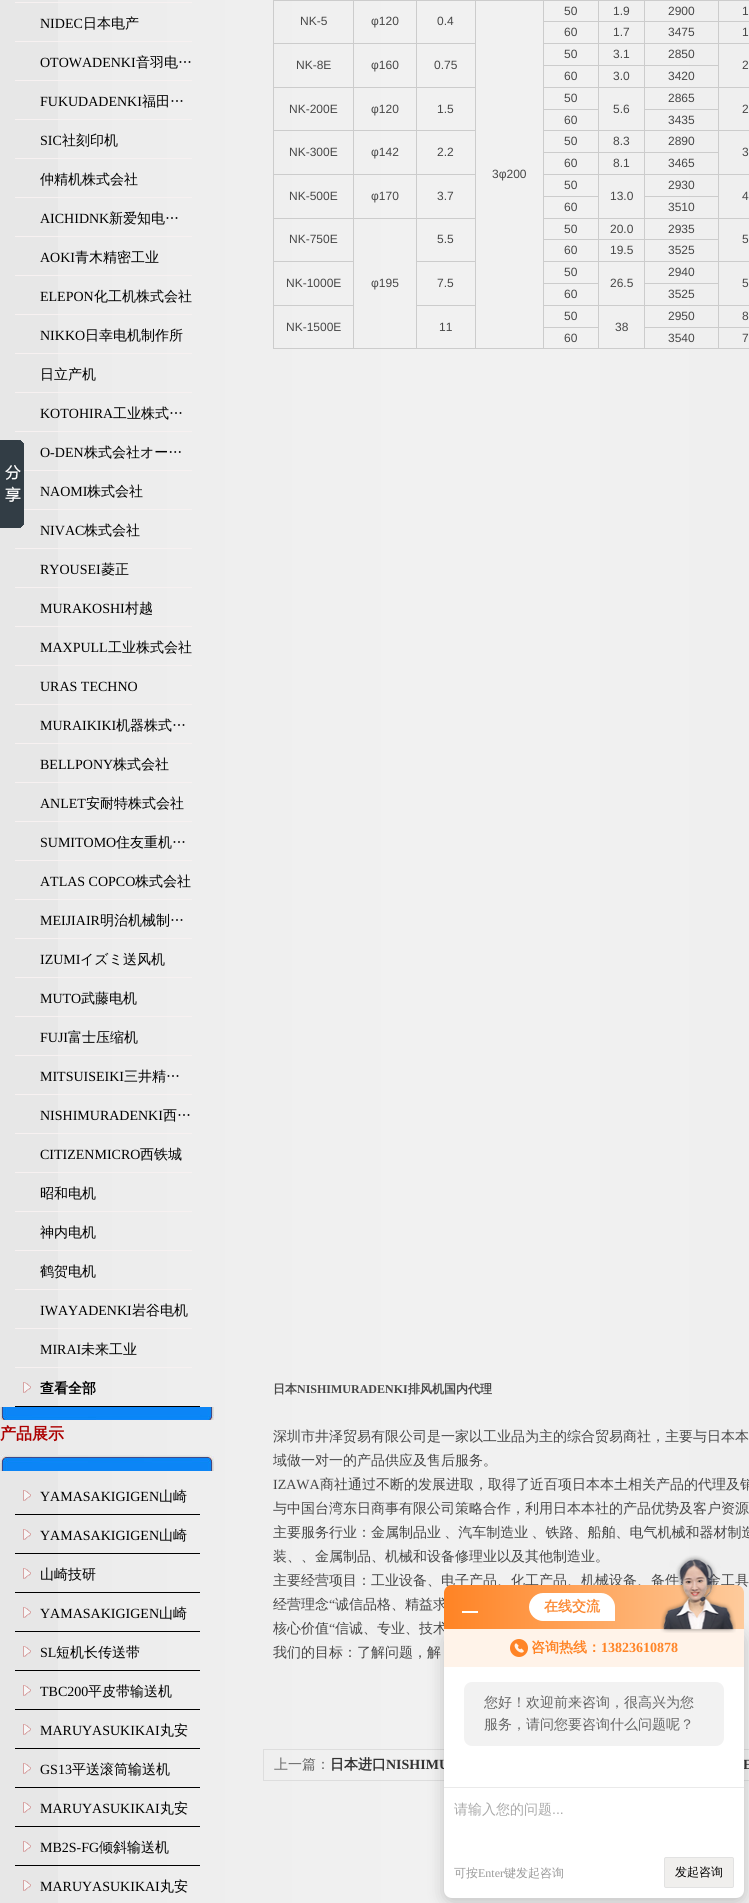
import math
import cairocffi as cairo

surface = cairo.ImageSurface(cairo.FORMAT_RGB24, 749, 1903)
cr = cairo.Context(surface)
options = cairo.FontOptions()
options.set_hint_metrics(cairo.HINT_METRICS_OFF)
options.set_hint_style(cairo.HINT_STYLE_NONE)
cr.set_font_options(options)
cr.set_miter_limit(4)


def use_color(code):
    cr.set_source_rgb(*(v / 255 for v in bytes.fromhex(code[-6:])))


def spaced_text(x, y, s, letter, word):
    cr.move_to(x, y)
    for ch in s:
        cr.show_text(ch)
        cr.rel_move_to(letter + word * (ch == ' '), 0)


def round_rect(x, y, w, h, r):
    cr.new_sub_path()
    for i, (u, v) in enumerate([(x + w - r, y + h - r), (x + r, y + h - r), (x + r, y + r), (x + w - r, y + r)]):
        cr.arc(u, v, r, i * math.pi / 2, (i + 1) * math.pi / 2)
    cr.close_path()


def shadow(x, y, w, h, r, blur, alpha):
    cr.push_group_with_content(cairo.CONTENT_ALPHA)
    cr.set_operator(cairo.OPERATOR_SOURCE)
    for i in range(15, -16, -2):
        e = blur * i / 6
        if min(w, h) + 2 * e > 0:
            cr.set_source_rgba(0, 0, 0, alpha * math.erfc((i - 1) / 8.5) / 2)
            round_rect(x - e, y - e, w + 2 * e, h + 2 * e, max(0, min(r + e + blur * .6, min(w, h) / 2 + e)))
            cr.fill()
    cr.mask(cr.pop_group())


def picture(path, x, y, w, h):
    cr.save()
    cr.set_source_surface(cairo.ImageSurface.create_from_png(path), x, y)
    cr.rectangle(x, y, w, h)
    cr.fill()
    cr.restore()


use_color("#e7e7e7")
cr.paint()
picture("img1.png", 58, 0, 691, 1903)
use_color("#f7f1f1")
cr.rectangle(15, 2, 177, 1)
cr.fill()
cr.rectangle(15, 41, 177, 1)
cr.fill()
cr.select_font_face("Liberation Serif")
cr.set_font_size(14)
use_color("#000000")
cr.move_to(40, 28)
cr.show_text("NIDEC")
cr.select_font_face("WenQuanYi Zen Hei Medium")
cr.move_to(83, 28)
cr.show_text("日本电产")
use_color("#f7f1f1")
cr.rectangle(15, 80, 177, 1)
cr.fill()
cr.select_font_face("Liberation Serif")
use_color("#000000")
cr.move_to(40, 67)
cr.show_text("OTOWADENKI")
cr.select_font_face("WenQuanYi Zen Hei Medium")
cr.move_to(136, 67)
cr.show_text("音羽电…")
use_color("#f7f1f1")
cr.rectangle(15, 119, 177, 1)
cr.fill()
cr.select_font_face("Liberation Serif")
use_color("#000000")
cr.move_to(40, 106)
cr.show_text("FUKUDADENKI")
cr.select_font_face("WenQuanYi Zen Hei Medium")
cr.move_to(142, 106)
cr.show_text("福田…")
use_color("#f7f1f1")
cr.rectangle(15, 158, 177, 1)
cr.fill()
cr.select_font_face("Liberation Serif")
use_color("#000000")
cr.move_to(40, 145)
cr.show_text("SIC")
cr.select_font_face("WenQuanYi Zen Hei Medium")
cr.move_to(62, 145)
cr.show_text("社刻印机")
use_color("#f7f1f1")
cr.rectangle(15, 197, 177, 1)
cr.fill()
use_color("#000000")
cr.move_to(40, 184)
cr.show_text("仲精机株式会社")
use_color("#f7f1f1")
cr.rectangle(15, 236, 177, 1)
cr.fill()
cr.select_font_face("Liberation Serif")
use_color("#000000")
cr.move_to(40, 223)
cr.show_text("AICHIDNK")
cr.select_font_face("WenQuanYi Zen Hei Medium")
cr.move_to(109, 223)
cr.show_text("新爱知电…")
use_color("#f7f1f1")
cr.rectangle(15, 275, 177, 1)
cr.fill()
cr.select_font_face("Liberation Serif")
use_color("#000000")
cr.move_to(40, 262)
cr.show_text("AOKI")
cr.select_font_face("WenQuanYi Zen Hei Medium")
cr.move_to(75, 262)
cr.show_text("青木精密工业")
use_color("#f7f1f1")
cr.rectangle(15, 314, 177, 1)
cr.fill()
cr.select_font_face("Liberation Serif")
use_color("#000000")
cr.move_to(40, 301)
cr.show_text("ELEPON")
cr.select_font_face("WenQuanYi Zen Hei Medium")
cr.move_to(94, 301)
cr.show_text("化工机株式会社")
use_color("#f7f1f1")
cr.rectangle(15, 353, 177, 1)
cr.fill()
cr.select_font_face("Liberation Serif")
use_color("#000000")
cr.move_to(40, 340)
cr.show_text("NIKKO")
cr.select_font_face("WenQuanYi Zen Hei Medium")
cr.move_to(85, 340)
cr.show_text("日幸电机制作所")
use_color("#f7f1f1")
cr.rectangle(15, 392, 177, 1)
cr.fill()
use_color("#000000")
cr.move_to(40, 379)
cr.show_text("日立产机")
use_color("#f7f1f1")
cr.rectangle(15, 431, 177, 1)
cr.fill()
cr.select_font_face("Liberation Serif")
use_color("#000000")
cr.move_to(40, 418)
cr.show_text("KOTOHIRA")
cr.select_font_face("WenQuanYi Zen Hei Medium")
cr.move_to(113, 418)
cr.show_text("工业株式…")
use_color("#f7f1f1")
cr.rectangle(24, 470, 168, 1)
cr.fill()
cr.select_font_face("Liberation Serif")
use_color("#000000")
cr.move_to(40, 457)
cr.show_text("O-DEN")
cr.select_font_face("WenQuanYi Zen Hei Medium")
cr.move_to(84, 457)
cr.show_text("株式会社オー…")
use_color("#f7f1f1")
cr.rectangle(24, 509, 168, 1)
cr.fill()
cr.select_font_face("Liberation Serif")
use_color("#000000")
cr.move_to(40, 496)
cr.show_text("NAOMI")
cr.select_font_face("WenQuanYi Zen Hei Medium")
cr.move_to(87, 496)
cr.show_text("株式会社")
use_color("#f7f1f1")
cr.rectangle(15, 548, 177, 1)
cr.fill()
cr.select_font_face("Liberation Serif")
use_color("#000000")
cr.move_to(40, 535)
cr.show_text("NIVAC")
cr.select_font_face("WenQuanYi Zen Hei Medium")
cr.move_to(84, 535)
cr.show_text("株式会社")
use_color("#f7f1f1")
cr.rectangle(15, 587, 177, 1)
cr.fill()
cr.select_font_face("Liberation Serif")
use_color("#000000")
cr.move_to(40, 574)
cr.show_text("RYOUSEI")
cr.select_font_face("WenQuanYi Zen Hei Medium")
cr.move_to(101, 574)
cr.show_text("菱正")
use_color("#f7f1f1")
cr.rectangle(15, 626, 177, 1)
cr.fill()
cr.select_font_face("Liberation Serif")
use_color("#000000")
cr.move_to(40, 613)
cr.show_text("MURAKOSHI")
cr.select_font_face("WenQuanYi Zen Hei Medium")
cr.move_to(125, 613)
cr.show_text("村越")
use_color("#f7f1f1")
cr.rectangle(15, 665, 177, 1)
cr.fill()
cr.select_font_face("Liberation Serif")
use_color("#000000")
cr.move_to(40, 652)
cr.show_text("MAXPULL")
cr.select_font_face("WenQuanYi Zen Hei Medium")
cr.move_to(108, 652)
cr.show_text("工业株式会社")
use_color("#f7f1f1")
cr.rectangle(15, 704, 177, 1)
cr.fill()
cr.select_font_face("Liberation Serif")
use_color("#000000")
cr.move_to(40, 691)
cr.show_text("URAS TECHNO")
use_color("#f7f1f1")
cr.rectangle(15, 743, 177, 1)
cr.fill()
use_color("#000000")
cr.move_to(40, 730)
cr.show_text("MURAIKIKI")
cr.select_font_face("WenQuanYi Zen Hei Medium")
cr.move_to(116, 730)
cr.show_text("机器株式…")
use_color("#f7f1f1")
cr.rectangle(15, 782, 177, 1)
cr.fill()
cr.select_font_face("Liberation Serif")
use_color("#000000")
cr.move_to(40, 769)
cr.show_text("BELLPONY")
cr.select_font_face("WenQuanYi Zen Hei Medium")
cr.move_to(113, 769)
cr.show_text("株式会社")
use_color("#f7f1f1")
cr.rectangle(15, 821, 177, 1)
cr.fill()
cr.select_font_face("Liberation Serif")
use_color("#000000")
cr.move_to(40, 808)
cr.show_text("ANLET")
cr.select_font_face("WenQuanYi Zen Hei Medium")
cr.move_to(86, 808)
cr.show_text("安耐特株式会社")
use_color("#f7f1f1")
cr.rectangle(15, 860, 177, 1)
cr.fill()
cr.select_font_face("Liberation Serif")
use_color("#000000")
cr.move_to(40, 847)
cr.show_text("SUMITOMO")
cr.select_font_face("WenQuanYi Zen Hei Medium")
cr.move_to(116, 847)
cr.show_text("住友重机…")
use_color("#f7f1f1")
cr.rectangle(15, 899, 177, 1)
cr.fill()
cr.select_font_face("Liberation Serif")
use_color("#000000")
cr.move_to(40, 886)
cr.show_text("ATLAS COPCO")
cr.select_font_face("WenQuanYi Zen Hei Medium")
cr.move_to(135, 886)
cr.show_text("株式会社")
use_color("#f7f1f1")
cr.rectangle(15, 938, 177, 1)
cr.fill()
cr.select_font_face("Liberation Serif")
use_color("#000000")
cr.move_to(40, 925)
cr.show_text("MEIJIAIR")
cr.select_font_face("WenQuanYi Zen Hei Medium")
cr.move_to(100, 925)
cr.show_text("明治机械制…")
use_color("#f7f1f1")
cr.rectangle(15, 977, 177, 1)
cr.fill()
cr.select_font_face("Liberation Serif")
use_color("#000000")
cr.move_to(40, 964)
cr.show_text("IZUMI")
cr.select_font_face("WenQuanYi Zen Hei Medium")
cr.move_to(80, 964)
cr.show_text("イズミ送风机")
use_color("#f7f1f1")
cr.rectangle(15, 1016, 177, 1)
cr.fill()
cr.select_font_face("Liberation Serif")
use_color("#000000")
cr.move_to(40, 1003)
cr.show_text("MUTO")
cr.select_font_face("WenQuanYi Zen Hei Medium")
cr.move_to(81, 1003)
cr.show_text("武藤电机")
use_color("#f7f1f1")
cr.rectangle(15, 1055, 177, 1)
cr.fill()
cr.select_font_face("Liberation Serif")
use_color("#000000")
cr.move_to(40, 1042)
cr.show_text("FUJI")
cr.select_font_face("WenQuanYi Zen Hei Medium")
cr.move_to(68, 1042)
cr.show_text("富士压缩机")
use_color("#f7f1f1")
cr.rectangle(15, 1094, 177, 1)
cr.fill()
cr.select_font_face("Liberation Serif")
use_color("#000000")
cr.move_to(40, 1081)
cr.show_text("MITSUISEIKI")
cr.select_font_face("WenQuanYi Zen Hei Medium")
cr.move_to(124, 1081)
cr.show_text("三井精…")
use_color("#f7f1f1")
cr.rectangle(15, 1133, 177, 1)
cr.fill()
cr.select_font_face("Liberation Serif")
use_color("#000000")
cr.move_to(40, 1120)
cr.show_text("NISHIMURADENKI")
cr.select_font_face("WenQuanYi Zen Hei Medium")
cr.move_to(163, 1120)
cr.show_text("西…")
use_color("#f7f1f1")
cr.rectangle(15, 1172, 177, 1)
cr.fill()
cr.select_font_face("Liberation Serif")
use_color("#000000")
cr.move_to(40, 1159)
cr.show_text("CITIZENMICRO")
cr.select_font_face("WenQuanYi Zen Hei Medium")
cr.move_to(140, 1159)
cr.show_text("西铁城")
use_color("#f7f1f1")
cr.rectangle(15, 1211, 177, 1)
cr.fill()
use_color("#000000")
cr.move_to(40, 1198)
cr.show_text("昭和电机")
use_color("#f7f1f1")
cr.rectangle(15, 1250, 177, 1)
cr.fill()
use_color("#000000")
cr.move_to(40, 1237)
cr.show_text("神内电机")
use_color("#f7f1f1")
cr.rectangle(15, 1289, 177, 1)
cr.fill()
use_color("#000000")
cr.move_to(40, 1276)
cr.show_text("鹤贺电机")
use_color("#f7f1f1")
cr.rectangle(15, 1328, 177, 1)
cr.fill()
cr.select_font_face("Liberation Serif")
use_color("#000000")
cr.move_to(40, 1315)
cr.show_text("IWAYADENKI")
cr.select_font_face("WenQuanYi Zen Hei Medium")
cr.move_to(132, 1315)
cr.show_text("岩谷电机")
use_color("#f7f1f1")
cr.rectangle(15, 1367, 177, 1)
cr.fill()
cr.select_font_face("Liberation Serif")
use_color("#000000")
cr.move_to(40, 1354)
cr.show_text("MIRAI")
cr.select_font_face("WenQuanYi Zen Hei Medium")
cr.move_to(81, 1354)
cr.show_text("未来工业")
picture("img2.png", 23, 1382, 8, 11)
cr.rectangle(15, 1406, 185, 1)
cr.fill()
cr.select_font_face("WenQuanYi Zen Hei", cairo.FONT_SLANT_NORMAL, cairo.FONT_WEIGHT_BOLD)
cr.move_to(40, 1393)
cr.show_text("查看全部")
picture("img3.png", 0, 1407, 214, 13)
cr.set_font_size(16)
use_color("#ac0000")
cr.move_to(0, 1439)
cr.show_text("产品展示")
picture("img4.png", 0, 1455, 214, 16)
picture("img2.png", 23, 1490, 8, 11)
use_color("#000000")
cr.rectangle(15, 1514, 185, 1)
cr.fill()
cr.select_font_face("Liberation Serif")
cr.set_font_size(14)
cr.move_to(40, 1501)
cr.show_text("YAMASAKIGIGEN")
cr.select_font_face("WenQuanYi Zen Hei Medium")
cr.move_to(159, 1501)
cr.show_text("山崎")
picture("img2.png", 23, 1529, 8, 11)
cr.rectangle(15, 1553, 185, 1)
cr.fill()
cr.select_font_face("Liberation Serif")
cr.move_to(40, 1540)
cr.show_text("YAMASAKIGIGEN")
cr.select_font_face("WenQuanYi Zen Hei Medium")
cr.move_to(159, 1540)
cr.show_text("山崎")
picture("img2.png", 23, 1568, 8, 11)
cr.rectangle(15, 1592, 185, 1)
cr.fill()
cr.move_to(40, 1579)
cr.show_text("山崎技研")
picture("img2.png", 23, 1607, 8, 11)
cr.rectangle(15, 1631, 185, 1)
cr.fill()
cr.select_font_face("Liberation Serif")
cr.move_to(40, 1618)
cr.show_text("YAMASAKIGIGEN")
cr.select_font_face("WenQuanYi Zen Hei Medium")
cr.move_to(159, 1618)
cr.show_text("山崎")
picture("img2.png", 23, 1646, 8, 11)
cr.rectangle(15, 1670, 185, 1)
cr.fill()
cr.select_font_face("Liberation Serif")
cr.move_to(40, 1657)
cr.show_text("SL")
cr.select_font_face("WenQuanYi Zen Hei Medium")
cr.move_to(56, 1657)
cr.show_text("短机长传送带")
picture("img2.png", 23, 1685, 8, 11)
cr.rectangle(15, 1709, 185, 1)
cr.fill()
cr.select_font_face("Liberation Serif")
cr.move_to(40, 1696)
cr.show_text("TBC200")
cr.select_font_face("WenQuanYi Zen Hei Medium")
cr.move_to(88, 1696)
cr.show_text("平皮带输送机")
picture("img2.png", 23, 1724, 8, 11)
cr.rectangle(15, 1748, 185, 1)
cr.fill()
cr.select_font_face("Liberation Serif")
cr.move_to(40, 1735)
cr.show_text("MARUYASUKIKAI")
cr.select_font_face("WenQuanYi Zen Hei Medium")
cr.move_to(160, 1735)
cr.show_text("丸安")
picture("img2.png", 23, 1763, 8, 11)
cr.rectangle(15, 1787, 185, 1)
cr.fill()
cr.select_font_face("Liberation Serif")
cr.move_to(40, 1774)
cr.show_text("GS13")
cr.select_font_face("WenQuanYi Zen Hei Medium")
cr.move_to(72, 1774)
cr.show_text("平送滚筒输送机")
picture("img2.png", 23, 1802, 8, 11)
cr.rectangle(15, 1826, 185, 1)
cr.fill()
cr.select_font_face("Liberation Serif")
cr.move_to(40, 1813)
cr.show_text("MARUYASUKIKAI")
cr.select_font_face("WenQuanYi Zen Hei Medium")
cr.move_to(160, 1813)
cr.show_text("丸安")
picture("img2.png", 23, 1841, 8, 11)
cr.rectangle(15, 1865, 185, 1)
cr.fill()
cr.select_font_face("Liberation Serif")
cr.move_to(40, 1852)
cr.show_text("MB2S-FG")
cr.select_font_face("WenQuanYi Zen Hei Medium")
cr.move_to(99, 1852)
cr.show_text("倾斜输送机")
picture("img2.png", 23, 1880, 8, 11)
cr.select_font_face("Liberation Serif")
cr.move_to(40, 1891)
cr.show_text("MARUYASUKIKAI")
cr.select_font_face("WenQuanYi Zen Hei Medium")
cr.move_to(160, 1891)
cr.show_text("丸安")
use_color("#cccccc")
cr.rectangle(718, 0, 31, 1)
cr.fill()
cr.rectangle(718, 21, 31, 1)
cr.fill()
cr.rectangle(718, 43, 31, 1)
cr.fill()
cr.rectangle(644, 65, 75, 1)
cr.fill()
cr.rectangle(718, 87, 31, 1)
cr.fill()
cr.rectangle(644, 109, 75, 1)
cr.fill()
cr.rectangle(718, 130, 31, 1)
cr.fill()
cr.rectangle(644, 152, 75, 1)
cr.fill()
cr.rectangle(718, 174, 31, 1)
cr.fill()
cr.rectangle(644, 196, 75, 1)
cr.fill()
cr.rectangle(718, 218, 31, 1)
cr.fill()
cr.rectangle(644, 239, 75, 1)
cr.fill()
cr.rectangle(718, 261, 31, 1)
cr.fill()
cr.rectangle(644, 283, 75, 1)
cr.fill()
cr.rectangle(718, 305, 31, 1)
cr.fill()
cr.rectangle(718, 327, 31, 1)
cr.fill()
cr.rectangle(718, 348, 31, 1)
cr.fill()
cr.rectangle(718, 327, 1, 22)
cr.fill()
cr.rectangle(644, 327, 75, 1)
cr.fill()
cr.rectangle(718, 305, 1, 23)
cr.fill()
cr.rectangle(644, 305, 75, 1)
cr.fill()
cr.rectangle(718, 261, 1, 45)
cr.fill()
cr.rectangle(644, 261, 75, 1)
cr.fill()
cr.rectangle(718, 218, 1, 44)
cr.fill()
cr.rectangle(644, 218, 75, 1)
cr.fill()
cr.rectangle(718, 174, 1, 45)
cr.fill()
cr.rectangle(644, 174, 75, 1)
cr.fill()
cr.rectangle(718, 130, 1, 45)
cr.fill()
cr.rectangle(644, 130, 75, 1)
cr.fill()
cr.rectangle(718, 87, 1, 44)
cr.fill()
cr.rectangle(644, 87, 75, 1)
cr.fill()
cr.rectangle(718, 43, 1, 45)
cr.fill()
cr.rectangle(644, 43, 75, 1)
cr.fill()
cr.rectangle(718, 21, 1, 23)
cr.fill()
cr.rectangle(644, 21, 75, 1)
cr.fill()
cr.rectangle(718, 0, 1, 22)
cr.fill()
cr.rectangle(644, 0, 75, 1)
cr.fill()
cr.rectangle(644, 348, 75, 1)
cr.fill()
cr.rectangle(644, 327, 1, 22)
cr.fill()
cr.rectangle(644, 305, 1, 23)
cr.fill()
cr.rectangle(598, 305, 47, 1)
cr.fill()
cr.rectangle(644, 283, 1, 23)
cr.fill()
cr.rectangle(644, 261, 1, 23)
cr.fill()
cr.rectangle(598, 261, 47, 1)
cr.fill()
cr.rectangle(644, 239, 1, 23)
cr.fill()
cr.rectangle(598, 239, 47, 1)
cr.fill()
cr.rectangle(644, 218, 1, 22)
cr.fill()
cr.rectangle(598, 218, 47, 1)
cr.fill()
cr.rectangle(644, 196, 1, 23)
cr.fill()
cr.rectangle(644, 174, 1, 23)
cr.fill()
cr.rectangle(598, 174, 47, 1)
cr.fill()
cr.rectangle(644, 152, 1, 23)
cr.fill()
cr.rectangle(598, 152, 47, 1)
cr.fill()
cr.rectangle(644, 130, 1, 23)
cr.fill()
cr.rectangle(598, 130, 47, 1)
cr.fill()
cr.rectangle(644, 109, 1, 22)
cr.fill()
cr.rectangle(644, 87, 1, 23)
cr.fill()
cr.rectangle(598, 87, 47, 1)
cr.fill()
cr.rectangle(644, 65, 1, 23)
cr.fill()
cr.rectangle(598, 65, 47, 1)
cr.fill()
cr.rectangle(644, 43, 1, 23)
cr.fill()
cr.rectangle(598, 43, 47, 1)
cr.fill()
cr.rectangle(644, 21, 1, 23)
cr.fill()
cr.rectangle(598, 21, 47, 1)
cr.fill()
cr.rectangle(644, 0, 1, 22)
cr.fill()
cr.rectangle(598, 0, 47, 1)
cr.fill()
cr.rectangle(543, 109, 56, 1)
cr.fill()
cr.rectangle(543, 196, 56, 1)
cr.fill()
cr.rectangle(543, 283, 56, 1)
cr.fill()
cr.rectangle(543, 327, 56, 1)
cr.fill()
cr.rectangle(543, 348, 102, 1)
cr.fill()
cr.rectangle(598, 305, 1, 44)
cr.fill()
cr.rectangle(543, 305, 56, 1)
cr.fill()
cr.rectangle(598, 261, 1, 45)
cr.fill()
cr.rectangle(543, 261, 56, 1)
cr.fill()
cr.rectangle(598, 239, 1, 23)
cr.fill()
cr.rectangle(543, 239, 56, 1)
cr.fill()
cr.rectangle(598, 218, 1, 22)
cr.fill()
cr.rectangle(543, 218, 56, 1)
cr.fill()
cr.rectangle(598, 174, 1, 45)
cr.fill()
cr.rectangle(543, 174, 56, 1)
cr.fill()
cr.rectangle(598, 152, 1, 23)
cr.fill()
cr.rectangle(543, 152, 56, 1)
cr.fill()
cr.rectangle(598, 130, 1, 23)
cr.fill()
cr.rectangle(543, 130, 56, 1)
cr.fill()
cr.rectangle(598, 87, 1, 44)
cr.fill()
cr.rectangle(543, 87, 56, 1)
cr.fill()
cr.rectangle(598, 65, 1, 23)
cr.fill()
cr.rectangle(543, 65, 56, 1)
cr.fill()
cr.rectangle(598, 43, 1, 23)
cr.fill()
cr.rectangle(543, 43, 56, 1)
cr.fill()
cr.rectangle(598, 21, 1, 23)
cr.fill()
cr.rectangle(543, 21, 56, 1)
cr.fill()
cr.rectangle(598, 0, 1, 22)
cr.fill()
cr.rectangle(543, 0, 56, 1)
cr.fill()
cr.rectangle(543, 327, 1, 22)
cr.fill()
cr.rectangle(543, 305, 1, 23)
cr.fill()
cr.rectangle(543, 283, 1, 23)
cr.fill()
cr.rectangle(543, 261, 1, 23)
cr.fill()
cr.rectangle(543, 239, 1, 23)
cr.fill()
cr.rectangle(543, 218, 1, 22)
cr.fill()
cr.rectangle(543, 196, 1, 23)
cr.fill()
cr.rectangle(543, 174, 1, 23)
cr.fill()
cr.rectangle(543, 152, 1, 23)
cr.fill()
cr.rectangle(543, 130, 1, 23)
cr.fill()
cr.rectangle(543, 109, 1, 22)
cr.fill()
cr.rectangle(543, 87, 1, 23)
cr.fill()
cr.rectangle(543, 65, 1, 23)
cr.fill()
cr.rectangle(543, 43, 1, 23)
cr.fill()
cr.rectangle(543, 21, 1, 23)
cr.fill()
cr.rectangle(543, 0, 1, 22)
cr.fill()
cr.select_font_face("Liberation Sans")
cr.set_font_size(12)
use_color("#474747")
cr.move_to(564, 15)
cr.show_text("50")
cr.move_to(613, 15)
cr.show_text("1.9")
cr.move_to(668, 15)
cr.show_text("2900")
cr.move_to(742, 15)
cr.show_text("1")
use_color("#cccccc")
cr.rectangle(475, 0, 69, 1)
cr.fill()
cr.rectangle(416, 43, 60, 1)
cr.fill()
cr.rectangle(416, 87, 60, 1)
cr.fill()
cr.rectangle(416, 130, 60, 1)
cr.fill()
cr.rectangle(416, 174, 60, 1)
cr.fill()
cr.rectangle(416, 218, 60, 1)
cr.fill()
cr.rectangle(416, 261, 60, 1)
cr.fill()
cr.rectangle(416, 305, 60, 1)
cr.fill()
cr.rectangle(416, 348, 128, 1)
cr.fill()
cr.rectangle(475, 0, 1, 349)
cr.fill()
cr.rectangle(416, 0, 60, 1)
cr.fill()
cr.rectangle(416, 305, 1, 44)
cr.fill()
cr.rectangle(416, 261, 1, 45)
cr.fill()
cr.rectangle(416, 218, 1, 44)
cr.fill()
cr.rectangle(353, 218, 64, 1)
cr.fill()
cr.rectangle(416, 174, 1, 45)
cr.fill()
cr.rectangle(353, 174, 64, 1)
cr.fill()
cr.rectangle(416, 130, 1, 45)
cr.fill()
cr.rectangle(353, 130, 64, 1)
cr.fill()
cr.rectangle(416, 87, 1, 44)
cr.fill()
cr.rectangle(353, 87, 64, 1)
cr.fill()
cr.rectangle(416, 43, 1, 45)
cr.fill()
cr.rectangle(353, 43, 64, 1)
cr.fill()
cr.rectangle(416, 0, 1, 44)
cr.fill()
cr.rectangle(353, 0, 64, 1)
cr.fill()
cr.rectangle(273, 261, 81, 1)
cr.fill()
cr.rectangle(273, 305, 81, 1)
cr.fill()
cr.rectangle(273, 348, 144, 1)
cr.fill()
cr.rectangle(353, 218, 1, 131)
cr.fill()
cr.rectangle(273, 218, 81, 1)
cr.fill()
cr.rectangle(353, 174, 1, 45)
cr.fill()
cr.rectangle(273, 174, 81, 1)
cr.fill()
cr.rectangle(353, 130, 1, 45)
cr.fill()
cr.rectangle(273, 130, 81, 1)
cr.fill()
cr.rectangle(353, 87, 1, 44)
cr.fill()
cr.rectangle(273, 87, 81, 1)
cr.fill()
cr.rectangle(353, 43, 1, 45)
cr.fill()
cr.rectangle(273, 43, 81, 1)
cr.fill()
cr.rectangle(353, 0, 1, 44)
cr.fill()
cr.rectangle(273, 0, 81, 1)
cr.fill()
cr.rectangle(273, 305, 1, 44)
cr.fill()
cr.rectangle(273, 261, 1, 45)
cr.fill()
cr.rectangle(273, 218, 1, 44)
cr.fill()
cr.rectangle(273, 174, 1, 45)
cr.fill()
cr.rectangle(273, 130, 1, 45)
cr.fill()
cr.rectangle(273, 87, 1, 44)
cr.fill()
cr.rectangle(273, 43, 1, 45)
cr.fill()
cr.rectangle(273, 0, 1, 44)
cr.fill()
use_color("#474747")
cr.move_to(300, 25)
cr.show_text("NK-5")
cr.move_to(371, 25)
cr.show_text("φ120")
cr.move_to(437, 25)
cr.show_text("0.4")
cr.move_to(492, 178)
cr.show_text("3φ200")
cr.move_to(564, 36)
cr.show_text("60")
cr.move_to(613, 36)
cr.show_text("1.7")
cr.move_to(668, 36)
cr.show_text("3475")
cr.move_to(742, 36)
cr.show_text("1")
cr.move_to(564, 58)
cr.show_text("50")
cr.move_to(613, 58)
cr.show_text("3.1")
cr.move_to(668, 58)
cr.show_text("2850")
cr.move_to(296, 69)
cr.show_text("NK-8E")
cr.move_to(371, 69)
cr.show_text("φ160")
cr.move_to(434, 69)
cr.show_text("0.75")
cr.move_to(742, 69)
cr.show_text("2")
cr.move_to(564, 80)
cr.show_text("60")
cr.move_to(613, 80)
cr.show_text("3.0")
cr.move_to(668, 80)
cr.show_text("3420")
cr.move_to(564, 102)
cr.show_text("50")
cr.move_to(668, 102)
cr.show_text("2865")
cr.move_to(289, 113)
cr.show_text("NK-200E")
cr.move_to(371, 113)
cr.show_text("φ120")
cr.move_to(437, 113)
cr.show_text("1.5")
cr.move_to(613, 113)
cr.show_text("5.6")
cr.move_to(742, 113)
cr.show_text("2")
cr.move_to(564, 124)
cr.show_text("60")
cr.move_to(668, 124)
cr.show_text("3435")
cr.move_to(564, 145)
cr.show_text("50")
cr.move_to(613, 145)
cr.show_text("8.3")
cr.move_to(668, 145)
cr.show_text("2890")
cr.move_to(289, 156)
cr.show_text("NK-300E")
cr.move_to(371, 156)
cr.show_text("φ142")
cr.move_to(437, 156)
cr.show_text("2.2")
cr.move_to(742, 156)
cr.show_text("3")
cr.move_to(564, 167)
cr.show_text("60")
cr.move_to(613, 167)
cr.show_text("8.1")
cr.move_to(668, 167)
cr.show_text("3465")
cr.move_to(564, 189)
cr.show_text("50")
cr.move_to(668, 189)
cr.show_text("2930")
cr.move_to(289, 200)
cr.show_text("NK-500E")
cr.move_to(371, 200)
cr.show_text("φ170")
cr.move_to(437, 200)
cr.show_text("3.7")
cr.move_to(610, 200)
cr.show_text("13.0")
cr.move_to(742, 200)
cr.show_text("4")
cr.move_to(564, 211)
cr.show_text("60")
cr.move_to(668, 211)
cr.show_text("3510")
cr.move_to(564, 233)
cr.show_text("50")
cr.move_to(610, 233)
cr.show_text("20.0")
cr.move_to(668, 233)
cr.show_text("2935")
cr.move_to(289, 243)
cr.show_text("NK-750E")
cr.move_to(437, 243)
cr.show_text("5.5")
cr.move_to(742, 243)
cr.show_text("5")
cr.move_to(371, 287)
cr.show_text("φ195")
cr.move_to(564, 254)
cr.show_text("60")
cr.move_to(610, 254)
cr.show_text("19.5")
cr.move_to(668, 254)
cr.show_text("3525")
cr.move_to(564, 276)
cr.show_text("50")
cr.move_to(668, 276)
cr.show_text("2940")
cr.move_to(286, 287)
cr.show_text("NK-1000E")
cr.move_to(437, 287)
cr.show_text("7.5")
cr.move_to(610, 287)
cr.show_text("26.5")
cr.move_to(742, 287)
cr.show_text("5")
cr.move_to(564, 298)
cr.show_text("60")
cr.move_to(668, 298)
cr.show_text("3525")
cr.move_to(564, 320)
cr.show_text("50")
cr.move_to(668, 320)
cr.show_text("2950")
cr.move_to(742, 320)
cr.show_text("8")
cr.move_to(286, 331)
cr.show_text("NK-1500E")
cr.move_to(439, 331)
cr.show_text("11")
cr.move_to(615, 331)
cr.show_text("38")
cr.move_to(564, 342)
cr.show_text("60")
cr.move_to(668, 342)
cr.show_text("3540")
cr.move_to(742, 342)
cr.show_text("7")
cr.select_font_face("WenQuanYi Zen Hei", cairo.FONT_SLANT_NORMAL, cairo.FONT_WEIGHT_BOLD)
cr.move_to(273, 1393)
cr.show_text("日本")
cr.select_font_face("Liberation Serif", cairo.FONT_SLANT_NORMAL, cairo.FONT_WEIGHT_BOLD)
cr.move_to(297, 1393)
cr.show_text("NISHIMURADENKI")
cr.select_font_face("WenQuanYi Zen Hei", cairo.FONT_SLANT_NORMAL, cairo.FONT_WEIGHT_BOLD)
cr.move_to(408, 1393)
cr.show_text("排风机国内代理")
cr.select_font_face("WenQuanYi Zen Hei Medium")
cr.set_font_size(14)
cr.move_to(273, 1441)
cr.show_text("深圳市井泽贸易有限公司是一家以工业品为主的综合贸易商社，主要与日本本")
cr.move_to(273, 1465)
cr.show_text("域做一对一的产品供应及售后服务。")
cr.select_font_face("Liberation Serif")
cr.move_to(273, 1489)
cr.show_text("IZAWA")
cr.select_font_face("WenQuanYi Zen Hei Medium")
cr.move_to(320, 1489)
cr.show_text("商社通过不断的发展进取，取得了近百项日本本土相关产品的代理及销")
cr.move_to(273, 1513)
cr.show_text("与中国台湾东日商事有限公司策略合作，利用日本本社的产品优势及客户资源")
spaced_text(273, 1537, "主要服务行业：金属制品业 、汽车制造业 、铁路、船舶、电气机械和器材制造", 0, -1)
cr.move_to(273, 1561)
cr.show_text("装、、金属制品、机械和设备修理业以及其他制造业。")
cr.move_to(273, 1585)
cr.show_text("主要经营项目：工业设备、电子产品、化工产品、机械设备、备件、五金工具")
cr.move_to(273, 1609)
cr.show_text("经营理念")
cr.select_font_face("Liberation Serif")
cr.move_to(329, 1609)
cr.show_text("“")
cr.select_font_face("WenQuanYi Zen Hei Medium")
cr.move_to(335, 1609)
cr.show_text("诚信品格、精益求")
cr.move_to(273, 1633)
cr.show_text("核心价值")
cr.select_font_face("Liberation Serif")
cr.move_to(329, 1633)
cr.show_text("“")
cr.select_font_face("WenQuanYi Zen Hei Medium")
cr.move_to(335, 1633)
cr.show_text("信诚、专业、技术")
cr.move_to(273, 1657)
cr.show_text("我们的目标：了解问题，解")
cr.rectangle(263.5, 1749.5, 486, 31)
use_color("#dddddd")
cr.set_line_width(1)
cr.stroke()
use_color("#666666")
cr.move_to(274, 1769)
cr.show_text("上一篇：")
cr.select_font_face("WenQuanYi Zen Hei", cairo.FONT_SLANT_NORMAL, cairo.FONT_WEIGHT_BOLD)
use_color("#333333")
cr.move_to(330, 1769)
cr.show_text("日本进口")
cr.select_font_face("Liberation Serif", cairo.FONT_SLANT_NORMAL, cairo.FONT_WEIGHT_BOLD)
cr.move_to(386, 1769)
cr.show_text("NISHIMU")
cr.move_to(743, 1769)
cr.show_text("E")
picture("img5.png", 0, 440, 24, 88)
use_color("#000000")
shadow(444, 1633, 300, 269, 8, 8, 0.2)
gradient = cairo.LinearGradient(444, 1607, 744, 1607)
gradient.add_color_stop_rgba(0, 1, 0.514, 0.141, 1)
gradient.add_color_stop_rgba(1, 0.996, 0.796, 0.612, 1)
cr.set_source(gradient)
cr.new_path()
cr.move_to(452, 1585)
cr.line_to(736, 1585)
cr.curve_to(740.5, 1585, 744, 1588.5, 744, 1593)
cr.line_to(744, 1629)
cr.line_to(444, 1629)
cr.line_to(444, 1593)
cr.curve_to(444, 1588.5, 447.5, 1585, 452, 1585)
cr.close_path()
cr.fill()
use_color("#ffffff")
cr.rectangle(462, 1611, 16, 2)
cr.fill()
cr.new_path()
cr.move_to(543, 1593)
cr.line_to(601, 1593)
cr.curve_to(608.5, 1593, 615, 1599.5, 615, 1607)
cr.line_to(615, 1621)
cr.line_to(543, 1621)
cr.curve_to(535.5, 1621, 529, 1614.5, 529, 1607)
cr.curve_to(529, 1599.5, 535.5, 1593, 543, 1593)
cr.close_path()
cr.fill()
cr.select_font_face("WenQuanYi Zen Hei", cairo.FONT_SLANT_NORMAL, cairo.FONT_WEIGHT_BOLD)
use_color("#fb8b36")
cr.move_to(544, 1611)
cr.show_text("在线交流")
use_color("#ffffff")
cr.new_path()
cr.move_to(444, 1629)
cr.line_to(744, 1629)
cr.line_to(744, 1890)
cr.curve_to(744, 1894.5, 740.5, 1898, 736, 1898)
cr.line_to(452, 1898)
cr.curve_to(447.5, 1898, 444, 1894.5, 444, 1890)
cr.close_path()
cr.fill()
use_color("#fff3e9")
cr.rectangle(444, 1629, 300, 38)
cr.fill()
picture("img6.png", 660, 1555, 76, 78)
picture("img7.png", 510, 1639, 18, 18)
use_color("#ff8426")
cr.move_to(531, 1652)
cr.show_text("咨询热线：")
cr.select_font_face("Liberation Serif", cairo.FONT_SLANT_NORMAL, cairo.FONT_WEIGHT_BOLD)
cr.move_to(601, 1652)
cr.show_text("13823610878")
use_color("#f2f2f2")
round_rect(464, 1682, 260, 64, 8)
cr.fill()
cr.select_font_face("WenQuanYi Zen Hei Medium")
use_color("#666666")
cr.move_to(484, 1707)
cr.show_text("您好！欢迎前来咨询，很高兴为您")
cr.move_to(484, 1729)
cr.show_text("服务，请问您要咨询什么问题呢？")
use_color("#eaeaea")
cr.rectangle(444, 1787, 300, 1)
cr.fill()
use_color("#aaaaaa")
cr.move_to(454, 1814)
cr.show_text("请输入您的问题")
cr.select_font_face("Liberation Sans")
cr.move_to(552, 1814)
cr.show_text("...")
cr.select_font_face("WenQuanYi Zen Hei Medium")
cr.set_font_size(12)
use_color("#999999")
cr.move_to(454, 1877)
cr.show_text("可按")
cr.select_font_face("Liberation Serif")
cr.move_to(478, 1877)
cr.show_text("Enter")
cr.select_font_face("WenQuanYi Zen Hei Medium")
cr.move_to(504, 1877)
cr.show_text("键发起咨询")
use_color("#f0efed")
round_rect(664.5, 1857.5, 69, 30, 1.5)
cr.fill_preserve()
use_color("#e2e2e2")
cr.stroke()
use_color("#000000")
cr.move_to(675, 1876)
cr.show_text("发起咨询")
surface.write_to_png("result.png")
